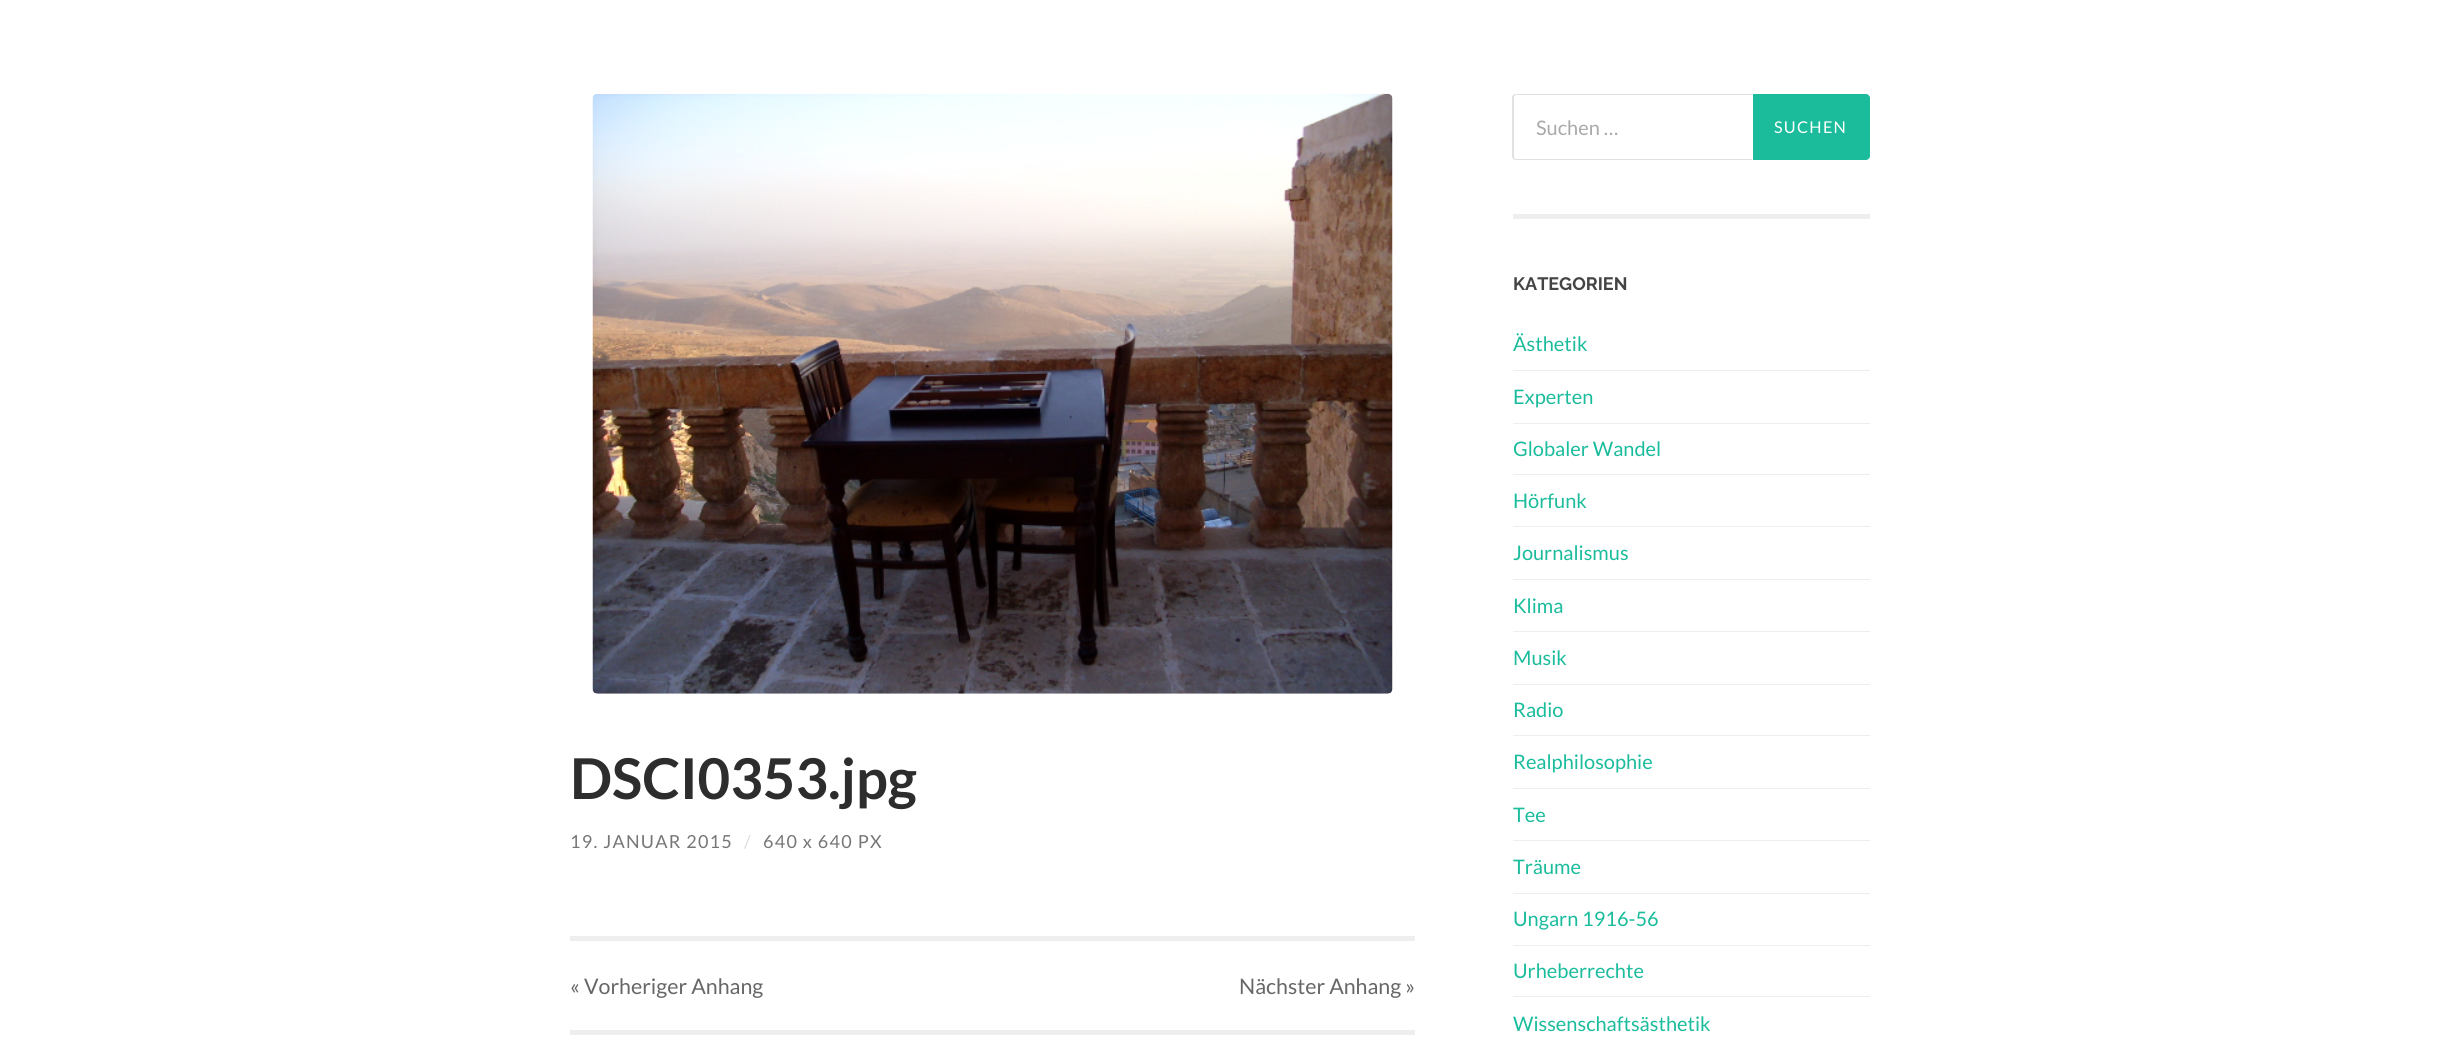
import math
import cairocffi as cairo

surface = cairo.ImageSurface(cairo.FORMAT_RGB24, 2440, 1044)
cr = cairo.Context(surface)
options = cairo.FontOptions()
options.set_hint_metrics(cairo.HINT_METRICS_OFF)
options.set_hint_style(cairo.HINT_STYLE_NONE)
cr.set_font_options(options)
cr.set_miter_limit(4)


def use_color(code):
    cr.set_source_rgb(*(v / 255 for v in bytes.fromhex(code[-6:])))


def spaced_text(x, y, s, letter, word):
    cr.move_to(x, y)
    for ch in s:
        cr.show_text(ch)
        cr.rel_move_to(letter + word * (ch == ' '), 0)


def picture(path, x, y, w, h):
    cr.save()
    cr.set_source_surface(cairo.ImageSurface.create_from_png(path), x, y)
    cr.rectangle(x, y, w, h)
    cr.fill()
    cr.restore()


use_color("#ffffff")
cr.paint()
picture("img1.png", 592, 93, 801, 601)
cr.select_font_face("Lato", cairo.FONT_SLANT_NORMAL, cairo.FONT_WEIGHT_BOLD)
cr.set_font_size(56.25)
use_color("#2d2d2d")
cr.move_to(570, 799)
cr.show_text("DSCI0353.jpg")
cr.select_font_face("Lato")
cr.set_font_size(18)
use_color("#767676")
spaced_text(570, 848, "19. JANUAR 2015", 1.25, 0)
use_color("#dddddd")
spaced_text(744, 848, "/", 1.25, 0)
use_color("#767676")
spaced_text(763, 848, "640 x 640 PX", 1.25, 0)
use_color("#eeeeee")
cr.rectangle(570, 936, 845, 5)
cr.fill()
cr.rectangle(570, 1030, 845, 5)
cr.fill()
cr.set_font_size(21.4)
use_color("#666666")
cr.move_to(570, 994)
cr.show_text("« Vorheriger Anhang")
cr.move_to(1239, 994)
cr.show_text("Nächster Anhang »")
use_color("#eeeeee")
cr.rectangle(1513, 214, 357, 5)
cr.fill()
use_color("#e1e1e3")
cr.set_fill_rule(cairo.FILL_RULE_EVEN_ODD)
cr.new_path()
cr.move_to(1516, 94)
cr.line_to(1752, 94)
cr.line_to(1752, 160)
cr.line_to(1516, 160)
cr.curve_to(1514, 160, 1512, 158, 1512, 156)
cr.line_to(1512, 98)
cr.curve_to(1512, 95, 1514, 94, 1516, 94)
cr.close_path()
cr.move_to(1516, 95)
cr.line_to(1752, 95)
cr.line_to(1752, 159)
cr.line_to(1516, 159)
cr.curve_to(1515, 159, 1514, 158, 1514, 156)
cr.line_to(1514, 98)
cr.curve_to(1514, 96, 1515, 95, 1516, 95)
cr.close_path()
cr.fill()
cr.set_font_size(20)
use_color("#a9a9a9")
cr.move_to(1536, 135)
cr.show_text("Suchen …")
use_color("#1abc9c")
cr.new_path()
cr.move_to(1753, 94)
cr.line_to(1866, 94)
cr.curve_to(1868, 94, 1870, 96, 1870, 98)
cr.line_to(1870, 156)
cr.curve_to(1870, 158, 1868, 160, 1866, 160)
cr.line_to(1753, 160)
cr.close_path()
cr.fill()
cr.set_font_size(16.25)
use_color("#ffffff")
spaced_text(1774, 133, "SUCHEN", 1.25, 0)
cr.select_font_face("Raleway Thin")
cr.set_font_size(18)
use_color("#444444")
cr.move_to(1513, 290)
cr.show_text("KATEGORIEN")
cr.select_font_face("Lato")
cr.set_font_size(20)
use_color("#1abc9c")
cr.move_to(1513, 351)
cr.show_text("Ästhetik")
use_color("#eeeeee")
cr.rectangle(1513, 370, 357, 1)
cr.fill()
use_color("#1abc9c")
cr.move_to(1513, 404)
cr.show_text("Experten")
use_color("#eeeeee")
cr.rectangle(1513, 423, 357, 1)
cr.fill()
use_color("#1abc9c")
cr.move_to(1513, 456)
cr.show_text("Globaler Wandel")
use_color("#eeeeee")
cr.rectangle(1513, 474, 357, 1)
cr.fill()
use_color("#1abc9c")
cr.move_to(1513, 508)
cr.show_text("Hörfunk")
use_color("#eeeeee")
cr.rectangle(1513, 526, 357, 1)
cr.fill()
use_color("#1abc9c")
cr.move_to(1513, 560)
cr.show_text("Journalismus")
use_color("#eeeeee")
cr.rectangle(1513, 579, 357, 1)
cr.fill()
use_color("#1abc9c")
cr.move_to(1513, 613)
cr.show_text("Klima")
use_color("#eeeeee")
cr.rectangle(1513, 631, 357, 1)
cr.fill()
use_color("#1abc9c")
cr.move_to(1513, 665)
cr.show_text("Musik")
use_color("#eeeeee")
cr.rectangle(1513, 684, 357, 1)
cr.fill()
use_color("#1abc9c")
cr.move_to(1513, 717)
cr.show_text("Radio")
use_color("#eeeeee")
cr.rectangle(1513, 735, 357, 1)
cr.fill()
use_color("#1abc9c")
cr.move_to(1513, 769)
cr.show_text("Realphilosophie")
use_color("#eeeeee")
cr.rectangle(1513, 788, 357, 1)
cr.fill()
use_color("#1abc9c")
cr.move_to(1513, 822)
cr.show_text("Tee")
use_color("#eeeeee")
cr.rectangle(1513, 840, 357, 1)
cr.fill()
use_color("#1abc9c")
cr.move_to(1513, 874)
cr.show_text("Träume")
use_color("#eeeeee")
cr.rectangle(1513, 893, 357, 1)
cr.fill()
use_color("#1abc9c")
cr.move_to(1513, 926)
cr.show_text("Ungarn 1916-56")
use_color("#eeeeee")
cr.rectangle(1513, 945, 357, 1)
cr.fill()
use_color("#1abc9c")
cr.move_to(1513, 978)
cr.show_text("Urheberrechte")
use_color("#eeeeee")
cr.rectangle(1513, 996, 357, 1)
cr.fill()
use_color("#1abc9c")
cr.move_to(1513, 1031)
cr.show_text("Wissenschaftsästhetik")
surface.write_to_png("result.png")
